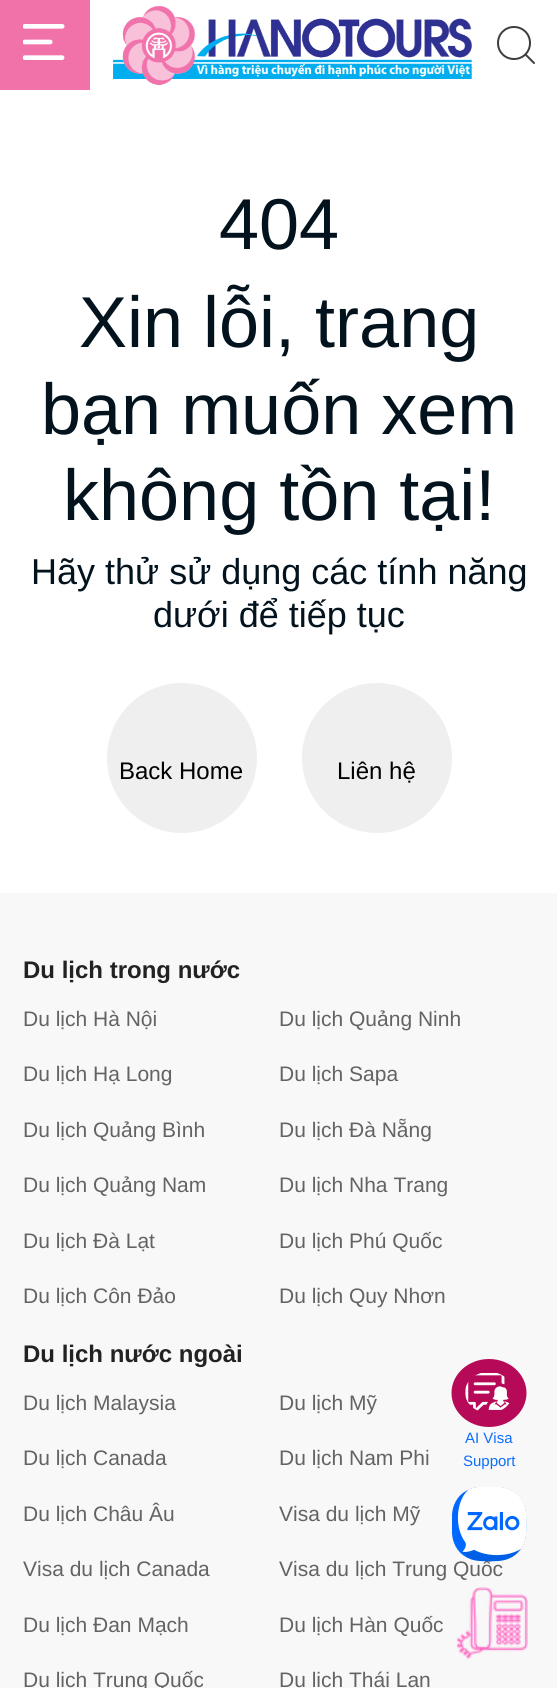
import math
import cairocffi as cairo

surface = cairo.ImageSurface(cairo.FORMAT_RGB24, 557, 1688)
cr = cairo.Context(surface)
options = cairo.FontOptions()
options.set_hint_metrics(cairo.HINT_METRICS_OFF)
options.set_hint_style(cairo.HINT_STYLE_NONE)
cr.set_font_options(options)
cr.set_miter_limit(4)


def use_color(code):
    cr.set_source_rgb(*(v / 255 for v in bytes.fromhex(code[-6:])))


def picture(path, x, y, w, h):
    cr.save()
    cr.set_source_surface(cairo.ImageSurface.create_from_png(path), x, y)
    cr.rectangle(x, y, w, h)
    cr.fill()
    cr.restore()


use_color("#ffffff")
cr.paint()
use_color("#f172a8")
cr.rectangle(0, 0, 90, 90)
cr.fill()
picture("img1.png", 23, 24, 42, 36)
picture("img2.png", 113, 6, 359, 79)
cr.new_path()
cr.move_to(534, 63)
cr.line_to(525.5, 54.5)
cr.move_to(530, 43)
cr.curve_to(530, 52, 523, 59, 514, 59)
cr.curve_to(505, 59, 498, 52, 498, 43)
cr.curve_to(498, 34, 505, 27, 514, 27)
cr.curve_to(523, 27, 530, 34, 530, 43)
cr.close_path()
use_color("#3e3e3f")
cr.set_line_cap(cairo.LINE_CAP_ROUND)
cr.set_line_join(cairo.LINE_JOIN_ROUND)
cr.stroke()
cr.select_font_face("Liberation Sans")
cr.set_font_size(72)
use_color("#03131e")
cr.move_to(219, 249)
cr.show_text("404")
cr.move_to(79, 347)
cr.show_text("Xin lỗi, trang")
cr.move_to(41, 434)
cr.show_text("bạn muốn xem")
cr.move_to(63, 520)
cr.show_text("không tồn tại!")
cr.set_font_size(36)
cr.move_to(31, 584)
cr.show_text("Hãy thử sử dụng các tính năng")
cr.move_to(153, 627)
cr.show_text("dưới để tiếp tục")
use_color("#efefef")
cr.new_path()
cr.arc(182, 758, 75, 0, 2 * math.pi)
cr.fill()
cr.set_font_size(24)
use_color("#000000")
cr.move_to(119, 779)
cr.show_text("Back Home")
use_color("#efefef")
cr.new_path()
cr.arc(377, 758, 75, 0, 2 * math.pi)
cr.fill()
use_color("#000000")
cr.move_to(337, 779)
cr.show_text("Liên hệ")
use_color("#f8f8f8")
cr.rectangle(0, 893, 557, 795)
cr.fill()
cr.select_font_face("Liberation Sans", cairo.FONT_SLANT_NORMAL, cairo.FONT_WEIGHT_BOLD)
use_color("#222222")
cr.move_to(23, 978)
cr.show_text("Du lịch trong nước")
cr.select_font_face("Liberation Sans")
cr.set_font_size(21)
use_color("#636363")
cr.move_to(23, 1026)
cr.show_text("Du lịch Hà Nội")
cr.move_to(279, 1026)
cr.show_text("Du lịch Quảng Ninh")
cr.move_to(23, 1081)
cr.show_text("Du lịch Hạ Long")
cr.move_to(279, 1081)
cr.show_text("Du lịch Sapa")
cr.move_to(23, 1137)
cr.show_text("Du lịch Quảng Bình")
cr.move_to(279, 1137)
cr.show_text("Du lịch Đà Nẵng")
cr.move_to(23, 1192)
cr.show_text("Du lịch Quảng Nam")
cr.move_to(279, 1192)
cr.show_text("Du lịch Nha Trang")
cr.move_to(23, 1248)
cr.show_text("Du lịch Đà Lạt")
cr.move_to(279, 1248)
cr.show_text("Du lịch Phú Quốc")
cr.move_to(23, 1303)
cr.show_text("Du lịch Côn Đảo")
cr.move_to(279, 1303)
cr.show_text("Du lịch Quy Nhơn")
cr.select_font_face("Liberation Sans", cairo.FONT_SLANT_NORMAL, cairo.FONT_WEIGHT_BOLD)
cr.set_font_size(24)
use_color("#222222")
cr.move_to(23, 1362)
cr.show_text("Du lịch nước ngoài")
cr.select_font_face("Liberation Sans")
cr.set_font_size(21)
use_color("#636363")
cr.move_to(23, 1410)
cr.show_text("Du lịch Malaysia")
cr.move_to(279, 1410)
cr.show_text("Du lịch Mỹ")
cr.move_to(23, 1465)
cr.show_text("Du lịch Canada")
cr.move_to(279, 1465)
cr.show_text("Du lịch Nam Phi")
cr.move_to(23, 1521)
cr.show_text("Du lịch Châu Âu")
cr.move_to(279, 1521)
cr.show_text("Visa du lịch Mỹ")
cr.move_to(23, 1576)
cr.show_text("Visa du lịch Canada")
cr.move_to(279, 1576)
cr.show_text("Visa du lịch Trung Quốc")
cr.move_to(23, 1632)
cr.show_text("Du lịch Đan Mạch")
cr.move_to(279, 1632)
cr.show_text("Du lịch Hàn Quốc")
cr.move_to(23, 1687)
cr.show_text("Du lịch Trung Quốc")
cr.move_to(279, 1687)
cr.show_text("Du lịch Thái Lan")
use_color("#b60957")
cr.new_path()
cr.move_to(489, 1359)
cr.curve_to(509.5, 1359, 526.5, 1374, 526.5, 1393)
cr.curve_to(526.5, 1412, 509.5, 1427, 489, 1427)
cr.curve_to(468.5, 1427, 451.5, 1412, 451.5, 1393)
cr.curve_to(451.5, 1374, 468.5, 1359, 489, 1359)
cr.close_path()
cr.fill()
picture("img3.png", 465, 1373, 45, 38)
cr.set_font_size(15)
use_color("#0d6efd")
cr.move_to(465, 1443)
cr.show_text("AI Visa")
cr.move_to(463, 1466)
cr.show_text("Support")
picture("img4.png", 452, 1487, 75, 75)
picture("img5.png", 456, 1587, 72, 72)
surface.write_to_png("result.png")
